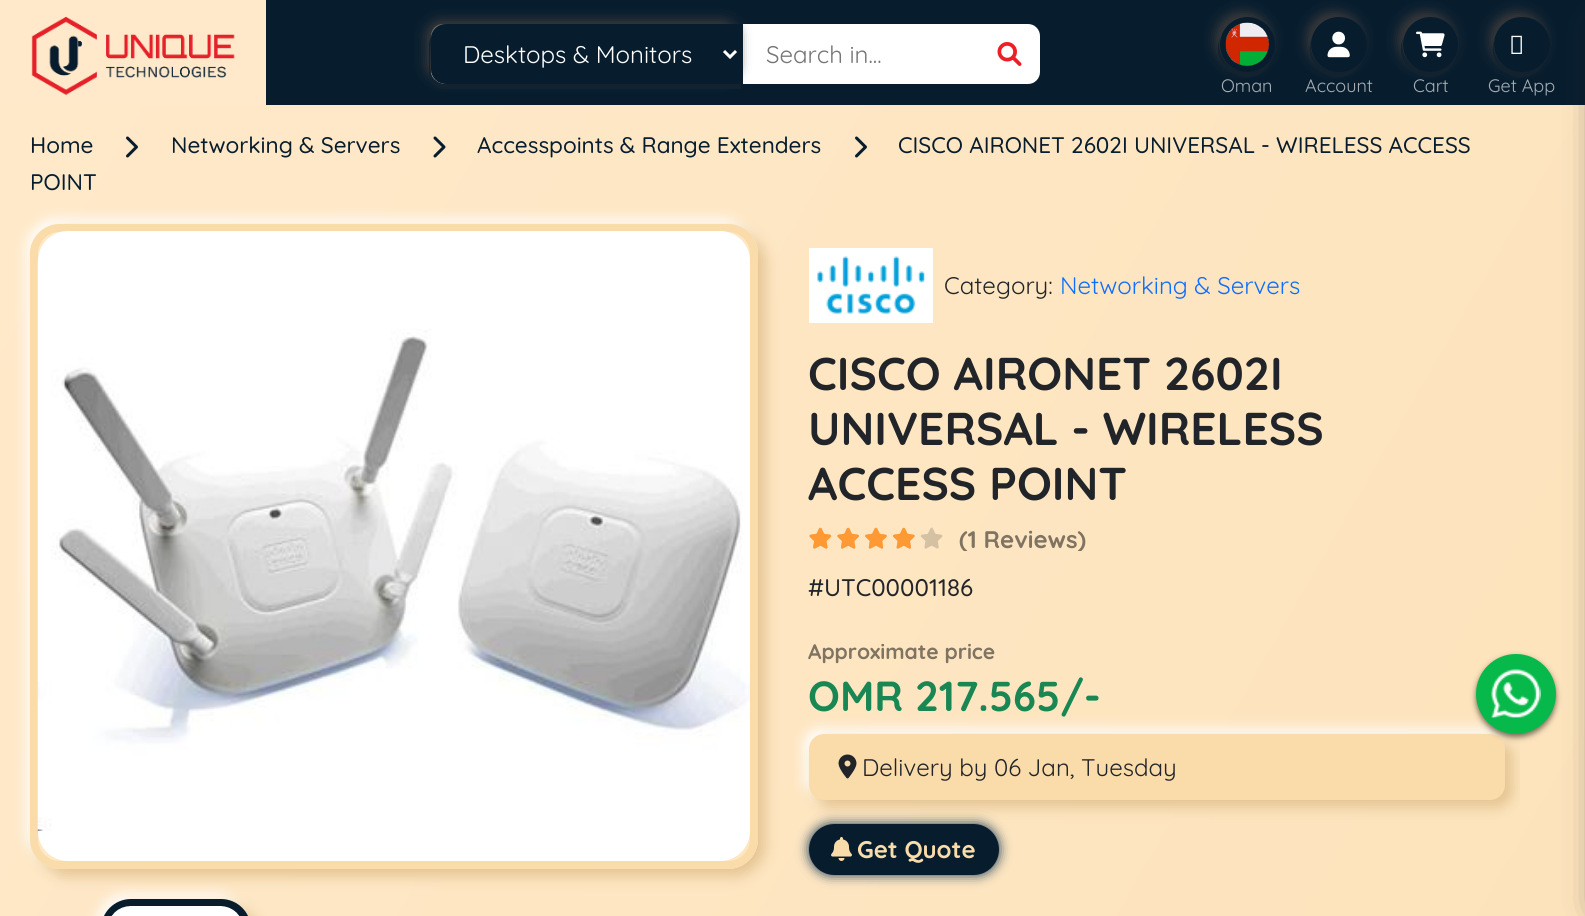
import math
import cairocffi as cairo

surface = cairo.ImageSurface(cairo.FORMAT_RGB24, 1585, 916)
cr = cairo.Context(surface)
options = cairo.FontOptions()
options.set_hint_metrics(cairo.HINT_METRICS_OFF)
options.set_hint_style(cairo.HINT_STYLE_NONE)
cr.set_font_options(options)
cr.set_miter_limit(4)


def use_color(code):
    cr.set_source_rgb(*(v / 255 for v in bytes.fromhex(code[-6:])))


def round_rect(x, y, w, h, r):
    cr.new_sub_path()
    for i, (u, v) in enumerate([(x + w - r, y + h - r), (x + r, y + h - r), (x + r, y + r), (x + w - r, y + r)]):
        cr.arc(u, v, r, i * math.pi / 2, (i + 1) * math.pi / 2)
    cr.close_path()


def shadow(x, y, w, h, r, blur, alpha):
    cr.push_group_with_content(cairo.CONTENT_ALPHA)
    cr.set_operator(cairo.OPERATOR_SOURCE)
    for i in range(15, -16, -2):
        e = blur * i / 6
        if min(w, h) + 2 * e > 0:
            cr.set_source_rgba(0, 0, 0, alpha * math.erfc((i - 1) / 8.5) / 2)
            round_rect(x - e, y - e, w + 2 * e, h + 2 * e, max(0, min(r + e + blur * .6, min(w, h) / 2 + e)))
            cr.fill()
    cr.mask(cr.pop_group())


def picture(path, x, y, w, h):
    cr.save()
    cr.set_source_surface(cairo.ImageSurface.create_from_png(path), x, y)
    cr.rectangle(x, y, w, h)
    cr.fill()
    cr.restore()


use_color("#ffffff")
cr.paint()
use_color("#071d2e")
cr.rectangle(266, 0, 1319, 105)
cr.fill()
use_color("#ffe9ca")
cr.rectangle(0, 0, 266, 105)
cr.fill()
picture("img1.png", 31, 16, 204, 80)
use_color("#ffffff")
round_rect(431, 24, 609, 60, 12)
cr.fill()
use_color("#3c3a3a")
shadow(426, 20, 312, 60, 15, 6, 1)
use_color("#12222f")
cr.new_path()
cr.move_to(431, 37)
cr.curve_to(430, 39, 429, 42, 429, 44)
cr.line_to(429, 74)
cr.curve_to(429, 82, 436, 89, 444, 89)
cr.line_to(741, 89)
cr.line_to(741, 84)
cr.line_to(446, 84)
cr.curve_to(437, 84, 430, 77, 430, 69)
cr.close_path()
cr.fill()
use_color("#071d2e")
cr.new_path()
cr.move_to(446, 24)
cr.line_to(743, 24)
cr.line_to(743, 84)
cr.line_to(446, 84)
cr.curve_to(437.5, 84, 431, 77.5, 431, 69)
cr.line_to(431, 39)
cr.curve_to(431, 30.5, 437.5, 24, 446, 24)
cr.close_path()
cr.fill()
cr.new_path()
cr.move_to(724, 51)
cr.line_to(730, 57)
cr.line_to(736, 51)
use_color("#ffffff")
cr.set_line_width(3)
cr.stroke()
cr.select_font_face("Quicksand")
cr.set_font_size(24)
cr.move_to(463, 63)
cr.show_text("Desktops & Monitors")
use_color("#757575")
cr.move_to(766, 63)
cr.show_text("Search in...")
picture("img2.png", 997, 42, 25, 24)
use_color("#3c3a3a")
shadow(1215, 12, 56, 56, 28, 6, 1)
use_color("#12222f")
cr.new_path()
cr.move_to(1274, 52)
cr.curve_to(1264, 86, 1213, 73, 1220, 38)
cr.curve_to(1209, 65, 1242, 90, 1265, 70)
cr.curve_to(1270, 65, 1273, 59, 1274, 52)
cr.close_path()
cr.fill()
use_color("#071d2e")
cr.arc(1247.5, 44.5, 27.5, 0, 2 * math.pi)
cr.fill()
picture("img3.png", 1225, 22, 44, 44)
cr.set_font_size(18)
use_color("#a6aeb4")
cr.move_to(1221, 92)
cr.show_text("Oman")
use_color("#3c3a3a")
shadow(1307, 12, 55, 56, 27.5, 6, 1)
use_color("#12222f")
cr.new_path()
cr.move_to(1365, 54)
cr.curve_to(1353, 85, 1306, 73, 1311, 40)
cr.curve_to(1303, 66, 1333, 89, 1355, 71)
cr.curve_to(1360, 66, 1363, 61, 1365, 54)
cr.close_path()
cr.fill()
use_color("#071d2e")
round_rect(1311, 17, 56, 55, 27.5)
cr.fill()
picture("img4.png", 1327, 31, 23, 27)
use_color("#a6aeb4")
cr.move_to(1305, 92)
cr.show_text("Account")
use_color("#3c3a3a")
shadow(1398, 12, 56, 56, 28, 6, 1)
use_color("#12222f")
cr.new_path()
cr.move_to(1457, 52)
cr.curve_to(1447, 86, 1396, 73, 1403, 38)
cr.curve_to(1392, 65, 1425, 90, 1448, 70)
cr.curve_to(1453, 65, 1456, 59, 1457, 52)
cr.close_path()
cr.fill()
use_color("#071d2e")
cr.arc(1430.5, 44.5, 27.5, 0, 2 * math.pi)
cr.fill()
picture("img5.png", 1416, 31, 29, 27)
use_color("#a6aeb4")
cr.move_to(1413, 92)
cr.show_text("Cart")
use_color("#3c3a3a")
shadow(1490, 12, 55, 56, 27.5, 6, 1)
use_color("#12222f")
cr.new_path()
cr.move_to(1548, 54)
cr.curve_to(1536, 85, 1489, 73, 1494, 40)
cr.curve_to(1486, 66, 1516, 89, 1538, 71)
cr.curve_to(1543, 66, 1546, 61, 1548, 54)
cr.close_path()
cr.fill()
use_color("#071d2e")
round_rect(1494, 17, 56, 55, 27.5)
cr.fill()
picture("img6.png", 1511, 35, 11, 19)
use_color("#a6aeb4")
cr.move_to(1488, 92)
cr.show_text("Get App")
gradient = cairo.LinearGradient(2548, 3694, -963, 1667)
gradient.add_color_stop_rgba(0, 0.98, 0.863, 0.667, 1)
gradient.add_color_stop_rgba(1, 1, 0.914, 0.792, 1)
cr.set_source(gradient)
cr.rectangle(0, 105, 1585, 811)
cr.fill()
cr.save()
cr.rectangle(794, 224, 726, 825)
cr.clip()
use_color("#ffffff")
shadow(804, 729, 696, 66, 15, 6, 1)
use_color("#e3c390")
shadow(816, 741, 696, 66, 15, 7, 1)
cr.restore()
use_color("#fadcab")
round_rect(809, 734, 696, 66, 15)
cr.fill()
use_color("#000000")
shadow(1476, 657, 80, 80, 40, 3, 0.54)
use_color("#07b94a")
cr.arc(1516, 694, 40, 0, 2 * math.pi)
cr.fill()
use_color("#212529")
shadow(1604, 26, 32, 880, 0, 17, 1)
cr.select_font_face("Quicksand Medium")
cr.set_font_size(22.5)
use_color("#071d2e")
cr.move_to(30, 153)
cr.show_text("Home")
picture("img7.png", 126, 136, 12, 22)
cr.move_to(171, 153)
cr.show_text("Networking & Servers")
picture("img8.png", 433, 136, 13, 22)
cr.move_to(477, 153)
cr.show_text("Accesspoints & Range Extenders")
picture("img9.png", 855, 136, 12, 22)
cr.move_to(898, 153)
cr.show_text("CISCO AIRONET 2602I UNIVERSAL - WIRELESS ACCESS")
cr.move_to(30, 190)
cr.show_text("POINT")
cr.save()
cr.set_fill_rule(cairo.FILL_RULE_EVEN_ODD)
cr.new_path()
cr.move_to(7, 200)
cr.line_to(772, 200)
cr.line_to(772, 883)
cr.line_to(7, 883)
cr.close_path()
cr.move_to(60, 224)
cr.line_to(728, 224)
cr.curve_to(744.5, 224, 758, 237.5, 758, 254)
cr.line_to(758, 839)
cr.curve_to(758, 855.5, 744.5, 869, 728, 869)
cr.line_to(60, 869)
cr.curve_to(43.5, 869, 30, 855.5, 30, 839)
cr.line_to(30, 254)
cr.curve_to(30, 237.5, 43.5, 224, 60, 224)
cr.close_path()
cr.clip()
use_color("#ffffff")
shadow(26, 219, 727, 645, 30, 6, 1)
cr.restore()
cr.save()
cr.set_fill_rule(cairo.FILL_RULE_EVEN_ODD)
cr.new_path()
cr.move_to(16, 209)
cr.line_to(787, 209)
cr.line_to(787, 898)
cr.line_to(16, 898)
cr.close_path()
cr.move_to(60, 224)
cr.line_to(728, 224)
cr.curve_to(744.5, 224, 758, 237.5, 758, 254)
cr.line_to(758, 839)
cr.curve_to(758, 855.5, 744.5, 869, 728, 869)
cr.line_to(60, 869)
cr.curve_to(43.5, 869, 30, 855.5, 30, 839)
cr.line_to(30, 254)
cr.curve_to(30, 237.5, 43.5, 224, 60, 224)
cr.close_path()
cr.clip()
use_color("#e3c390")
shadow(38, 231, 727, 645, 30, 7, 1)
cr.restore()
round_rect(34, 228, 720, 637, 26)
use_color("#fadcab")
cr.set_line_width(8)
cr.stroke()
use_color("#ffffff")
round_rect(38, 231, 712, 630, 30)
cr.fill()
picture("img10.png", 37, 261, 713, 570)
cr.save()
cr.rectangle(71, 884, 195, 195)
cr.clip()
use_color("#ffffff")
shadow(96, 894, 150, 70, 30, 6, 1)
cr.restore()
use_color("#e3c390")
shadow(108, 906, 150, 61, 30, 7, 1)
round_rect(105, 903, 142, 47, 26)
use_color("#071d2e")
cr.stroke()
picture("img11.png", 111, 906, 129, 10)
use_color("#ffffff")
cr.rectangle(809, 248, 124, 75)
cr.fill()
picture("img12.png", 817, 256, 108, 58)
cr.select_font_face("Quicksand")
cr.set_font_size(24)
use_color("#212529")
cr.move_to(944, 294)
cr.show_text("Category:")
use_color("#0d6efd")
cr.move_to(1060, 294)
cr.show_text("Networking & Servers")
cr.select_font_face("Quicksand", cairo.FONT_SLANT_NORMAL, cairo.FONT_WEIGHT_BOLD)
cr.set_font_size(46)
use_color("#212529")
cr.move_to(808, 390)
cr.show_text("CISCO AIRONET 2602I")
cr.move_to(808, 445)
cr.show_text("UNIVERSAL - WIRELESS")
cr.move_to(808, 500)
cr.show_text("ACCESS POINT")
picture("img13.png", 809, 527, 134, 22)
picture("img14.png", 809, 528, 106, 21)
cr.save()
cr.rectangle(959, 527, 127, 24)
cr.clip()
cr.set_font_size(24)
use_color("#7f7361")
cr.move_to(959, 548)
cr.show_text("(1 Reviews)")
cr.restore()
cr.select_font_face("Quicksand Medium")
cr.set_font_size(24)
cr.move_to(808, 596)
cr.show_text("#UTC00001186")
cr.select_font_face("Quicksand", cairo.FONT_SLANT_NORMAL, cairo.FONT_WEIGHT_BOLD)
cr.set_font_size(21)
use_color("#7f7361")
cr.move_to(808, 659)
cr.show_text("Approximate price")
cr.set_font_size(42)
use_color("#198754")
cr.move_to(808, 711)
cr.show_text("OMR 217.565/-")
picture("img15.png", 838, 754, 19, 25)
cr.select_font_face("Quicksand")
cr.set_font_size(24)
use_color("#212529")
cr.move_to(862, 776)
cr.show_text("Delivery by 06 Jan, Tuesday")
use_color("#153a57")
shadow(809, 824, 190, 51, 25.5, 6, 1)
use_color("#071d2e")
round_rect(809, 824, 190, 51, 25.5)
cr.fill()
picture("img16.png", 831, 837, 21, 24)
cr.select_font_face("Quicksand", cairo.FONT_SLANT_NORMAL, cairo.FONT_WEIGHT_BOLD)
use_color("#fadcab")
cr.move_to(857, 858)
cr.show_text("Get Quote")
picture("img17.png", 1491, 669, 50, 49)
surface.write_to_png("result.png")
